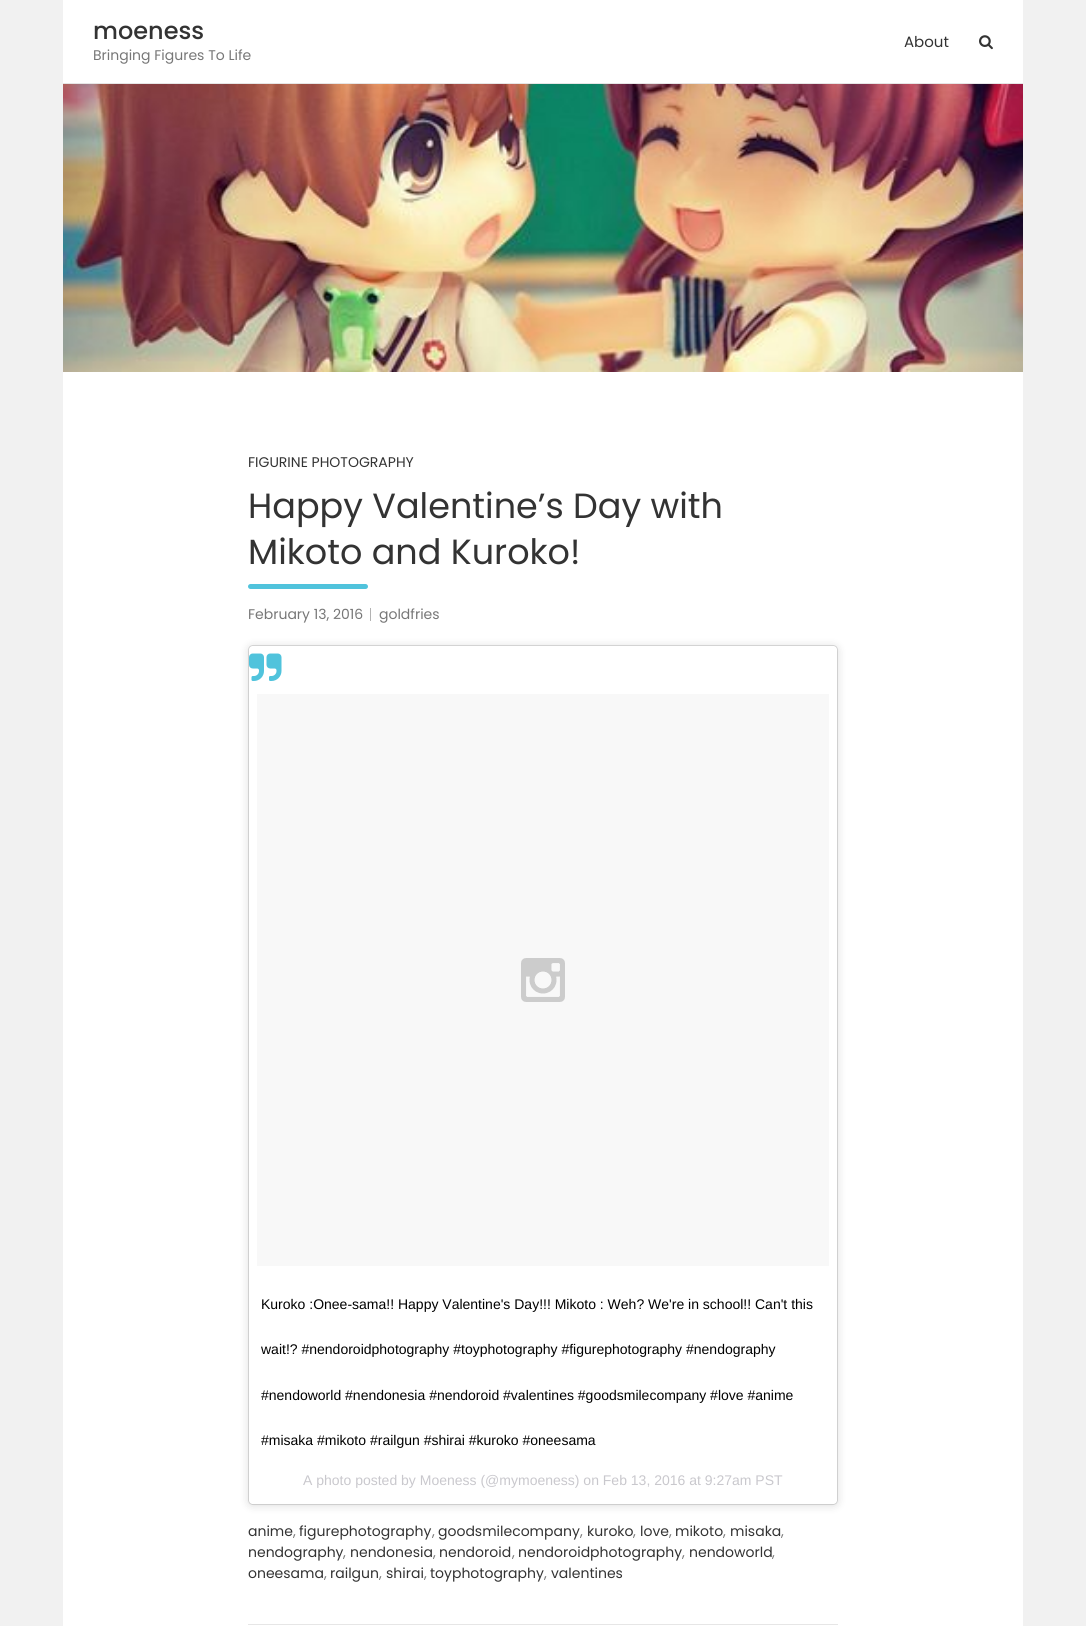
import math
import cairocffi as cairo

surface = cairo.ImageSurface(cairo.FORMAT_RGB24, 1086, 1626)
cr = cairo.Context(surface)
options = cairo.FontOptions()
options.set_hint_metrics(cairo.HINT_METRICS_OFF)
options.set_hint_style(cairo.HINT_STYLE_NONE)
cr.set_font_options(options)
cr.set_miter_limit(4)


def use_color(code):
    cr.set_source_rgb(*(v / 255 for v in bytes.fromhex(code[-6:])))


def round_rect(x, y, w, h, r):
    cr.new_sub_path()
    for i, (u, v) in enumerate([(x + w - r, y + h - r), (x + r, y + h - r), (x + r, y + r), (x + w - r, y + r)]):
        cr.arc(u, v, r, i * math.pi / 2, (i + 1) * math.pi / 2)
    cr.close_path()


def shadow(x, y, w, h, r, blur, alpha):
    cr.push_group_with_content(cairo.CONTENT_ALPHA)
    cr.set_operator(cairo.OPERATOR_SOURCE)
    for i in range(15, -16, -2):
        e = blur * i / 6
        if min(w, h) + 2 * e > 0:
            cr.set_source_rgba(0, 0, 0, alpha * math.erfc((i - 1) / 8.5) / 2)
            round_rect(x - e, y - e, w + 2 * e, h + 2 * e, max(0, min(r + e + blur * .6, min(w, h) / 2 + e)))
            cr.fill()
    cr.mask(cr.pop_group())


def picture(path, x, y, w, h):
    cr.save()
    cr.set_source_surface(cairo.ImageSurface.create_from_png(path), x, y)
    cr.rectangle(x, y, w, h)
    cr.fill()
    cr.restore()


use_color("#f1f1f1")
cr.paint()
use_color("#ffffff")
cr.rectangle(63, 0, 960, 1626)
cr.fill()
use_color("#e6e6e6")
cr.rectangle(63, 83, 960, 1)
cr.fill()
cr.select_font_face("Poppins Medium")
cr.set_font_size(24)
use_color("#333333")
cr.move_to(93, 39)
cr.show_text("moeness")
cr.select_font_face("Poppins")
cr.set_font_size(14)
use_color("#777777")
cr.move_to(93, 60)
cr.show_text("Bringing Figures To Life")
cr.set_font_size(15)
use_color("#333333")
cr.move_to(904, 47)
cr.show_text("About")
picture("img1.png", 979, 35, 14, 15)
picture("img2.png", 63, 84, 960, 288)
use_color("#e6e6e6")
cr.rectangle(248, 1624, 590, 1)
cr.fill()
cr.set_font_size(14)
use_color("#333333")
cr.move_to(248, 467)
cr.show_text("FIGURINE PHOTOGRAPHY")
cr.set_font_size(35)
cr.move_to(248, 518)
cr.show_text("Happy Valentine’s Day with")
cr.move_to(248, 564)
cr.show_text("Mikoto and Kuroko!")
use_color("#50c3dc")
round_rect(248, 584, 120, 5, 2.5)
cr.fill()
cr.set_font_size(14)
use_color("#777777")
cr.move_to(248, 619)
cr.show_text("February 13, 2016")
use_color("#b3b3b3")
cr.rectangle(370, 608, 1, 13)
cr.fill()
use_color("#777777")
cr.move_to(379, 619)
cr.show_text("goldfries")
use_color("#000000")
shadow(249, 647, 588, 858, 3, 5, 0.15)
shadow(249, 646, 588, 858, 3, 0.5, 0.5)
use_color("#ffffff")
round_rect(249, 646, 588, 858, 3)
cr.fill()
picture("img3.png", 249, 653, 33, 28)
use_color("#f8f8f8")
cr.rectangle(257, 694, 572, 572)
cr.fill()
picture("img4.png", 521, 958, 44, 44)
cr.select_font_face("Liberation Sans")
use_color("#000000")
cr.move_to(261, 1309)
cr.show_text("Kuroko :Onee-sama!! Happy Valentine's Day!!! Mikoto : Weh? We're in school!! Can't this")
cr.move_to(261, 1354)
cr.show_text("wait!? #nendoroidphotography #toyphotography #figurephotography #nendography")
cr.move_to(261, 1400)
cr.show_text("#nendoworld #nendonesia #nendoroid #valentines #goodsmilecompany #love #anime")
cr.move_to(261, 1445)
cr.show_text("#misaka #mikoto #railgun #shirai #kuroko #oneesama")
use_color("#c9c8cd")
cr.move_to(303, 1485)
cr.show_text("A photo posted by Moeness (@mymoeness) on Feb 13, 2016 at 9:27am PST")
cr.select_font_face("Poppins")
use_color("#333333")
cr.move_to(248, 1536)
cr.show_text("anime")
use_color("#777777")
cr.move_to(293, 1536)
cr.show_text(",")
use_color("#333333")
cr.move_to(299, 1536)
cr.show_text("figurephotography")
use_color("#777777")
cr.move_to(432, 1536)
cr.show_text(",")
use_color("#333333")
cr.move_to(438, 1536)
cr.show_text("goodsmilecompany")
use_color("#777777")
cr.move_to(580, 1536)
cr.show_text(",")
use_color("#333333")
cr.move_to(587, 1536)
cr.show_text("kuroko")
use_color("#777777")
cr.move_to(633, 1536)
cr.show_text(",")
use_color("#333333")
cr.move_to(640, 1536)
cr.show_text("love")
use_color("#777777")
cr.move_to(669, 1536)
cr.show_text(",")
use_color("#333333")
cr.move_to(675, 1536)
cr.show_text("mikoto")
use_color("#777777")
cr.move_to(723, 1536)
cr.show_text(",")
use_color("#333333")
cr.move_to(730, 1536)
cr.show_text("misaka")
use_color("#777777")
cr.move_to(781, 1536)
cr.show_text(",")
use_color("#333333")
cr.move_to(248, 1557)
cr.show_text("nendography")
use_color("#777777")
cr.move_to(343, 1557)
cr.show_text(",")
use_color("#333333")
cr.move_to(350, 1557)
cr.show_text("nendonesia")
use_color("#777777")
cr.move_to(433, 1557)
cr.show_text(",")
use_color("#333333")
cr.move_to(439, 1557)
cr.show_text("nendoroid")
use_color("#777777")
cr.move_to(512, 1557)
cr.show_text(",")
use_color("#333333")
cr.move_to(518, 1557)
cr.show_text("nendoroidphotography")
use_color("#777777")
cr.move_to(682, 1557)
cr.show_text(",")
use_color("#333333")
cr.move_to(689, 1557)
cr.show_text("nendoworld")
use_color("#777777")
cr.move_to(772, 1557)
cr.show_text(",")
use_color("#333333")
cr.move_to(248, 1578)
cr.show_text("oneesama")
use_color("#777777")
cr.move_to(324, 1578)
cr.show_text(",")
use_color("#333333")
cr.move_to(330, 1578)
cr.show_text("railgun")
use_color("#777777")
cr.move_to(379, 1578)
cr.show_text(",")
use_color("#333333")
cr.move_to(386, 1578)
cr.show_text("shirai")
use_color("#777777")
cr.move_to(424, 1578)
cr.show_text(",")
use_color("#333333")
cr.move_to(430, 1578)
cr.show_text("toyphotography")
use_color("#777777")
cr.move_to(544, 1578)
cr.show_text(",")
use_color("#333333")
cr.move_to(551, 1578)
cr.show_text("valentines")
surface.write_to_png("result.png")
